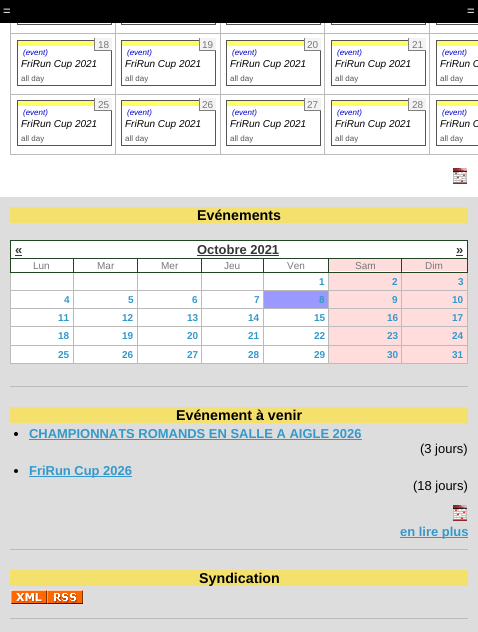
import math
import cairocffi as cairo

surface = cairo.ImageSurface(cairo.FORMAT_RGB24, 478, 632)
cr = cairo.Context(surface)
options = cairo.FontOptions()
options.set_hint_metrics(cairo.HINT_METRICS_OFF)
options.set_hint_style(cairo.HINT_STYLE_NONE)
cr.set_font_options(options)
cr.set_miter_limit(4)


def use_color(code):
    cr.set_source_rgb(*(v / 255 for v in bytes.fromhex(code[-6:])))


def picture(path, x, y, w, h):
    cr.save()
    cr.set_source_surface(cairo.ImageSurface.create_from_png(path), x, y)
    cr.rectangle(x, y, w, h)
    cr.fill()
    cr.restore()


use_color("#ffffff")
cr.paint()
cr.rectangle(17.5, -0.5, 94, 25)
use_color("#555555")
cr.set_line_width(1)
cr.stroke()
cr.rectangle(121.5, -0.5, 94, 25)
cr.stroke()
cr.rectangle(226.5, -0.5, 94, 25)
cr.stroke()
cr.rectangle(331.5, -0.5, 94, 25)
cr.stroke()
cr.rectangle(436.5, -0.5, 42, 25)
cr.stroke()
use_color("#000000")
cr.rectangle(0, 0, 478, 23)
cr.fill()
cr.select_font_face("Liberation Sans")
cr.set_font_size(12.95)
use_color("#ffffff")
cr.move_to(3, 15)
cr.show_text("=")
cr.move_to(467, 15)
cr.show_text("=")
use_color("#bbbbbb")
cr.rectangle(429, 33, 49, 1)
cr.fill()
cr.rectangle(429, 94, 49, 1)
cr.fill()
cr.rectangle(429, 154, 49, 1)
cr.fill()
cr.rectangle(429, 94, 1, 61)
cr.fill()
cr.rectangle(324, 94, 106, 1)
cr.fill()
cr.rectangle(429, 33, 1, 62)
cr.fill()
cr.rectangle(324, 33, 106, 1)
cr.fill()
cr.rectangle(324, 154, 106, 1)
cr.fill()
cr.rectangle(324, 94, 1, 61)
cr.fill()
cr.rectangle(220, 94, 105, 1)
cr.fill()
cr.rectangle(324, 33, 1, 62)
cr.fill()
cr.rectangle(220, 33, 105, 1)
cr.fill()
cr.rectangle(220, 154, 105, 1)
cr.fill()
cr.rectangle(220, 94, 1, 61)
cr.fill()
cr.rectangle(115, 94, 106, 1)
cr.fill()
cr.rectangle(220, 33, 1, 62)
cr.fill()
cr.rectangle(115, 33, 106, 1)
cr.fill()
cr.rectangle(115, 154, 106, 1)
cr.fill()
cr.rectangle(115, 94, 1, 61)
cr.fill()
cr.rectangle(10, 94, 106, 1)
cr.fill()
cr.rectangle(115, 33, 1, 62)
cr.fill()
cr.rectangle(10, 33, 106, 1)
cr.fill()
cr.rectangle(115, 23, 1, 11)
cr.fill()
cr.rectangle(220, 23, 1, 11)
cr.fill()
cr.rectangle(324, 23, 1, 11)
cr.fill()
cr.rectangle(429, 23, 1, 11)
cr.fill()
cr.rectangle(10, 154, 106, 1)
cr.fill()
cr.rectangle(10, 94, 1, 61)
cr.fill()
cr.rectangle(10, 23, 1, 72)
cr.fill()
cr.rectangle(17.5, 40.5, 94, 45)
use_color("#555555")
cr.stroke()
use_color("#f3f3f3")
cr.rectangle(95, 38, 17, 12)
cr.fill()
use_color("#808080")
cr.rectangle(94, 50, 18, 1)
cr.fill()
cr.rectangle(94, 38, 1, 13)
cr.fill()
cr.set_font_size(10)
use_color("#777777")
cr.move_to(98, 48)
cr.show_text("18")
use_color("#ffff66")
cr.rectangle(18, 41, 76, 5)
cr.fill()
cr.select_font_face("Liberation Sans", cairo.FONT_SLANT_ITALIC)
cr.set_font_size(8)
use_color("#0000cc")
cr.move_to(23, 55)
cr.show_text("(event)")
cr.set_font_size(10)
use_color("#000000")
cr.move_to(21, 67)
cr.show_text("FriRun Cup 2021")
cr.select_font_face("Liberation Sans")
cr.set_font_size(8)
use_color("#555555")
cr.move_to(21, 81)
cr.show_text("all day")
cr.rectangle(121.5, 40.5, 94, 45)
cr.stroke()
use_color("#f3f3f3")
cr.rectangle(200, 38, 16, 12)
cr.fill()
use_color("#808080")
cr.rectangle(199, 50, 17, 1)
cr.fill()
cr.rectangle(199, 38, 1, 13)
cr.fill()
cr.set_font_size(10)
use_color("#777777")
cr.move_to(202, 48)
cr.show_text("19")
use_color("#ffff66")
cr.rectangle(122, 41, 77, 5)
cr.fill()
cr.select_font_face("Liberation Sans", cairo.FONT_SLANT_ITALIC)
cr.set_font_size(8)
use_color("#0000cc")
cr.move_to(127, 55)
cr.show_text("(event)")
cr.set_font_size(10)
use_color("#000000")
cr.move_to(125, 67)
cr.show_text("FriRun Cup 2021")
cr.select_font_face("Liberation Sans")
cr.set_font_size(8)
use_color("#555555")
cr.move_to(125, 81)
cr.show_text("all day")
cr.rectangle(226.5, 40.5, 94, 45)
cr.stroke()
use_color("#f3f3f3")
cr.rectangle(305, 38, 16, 12)
cr.fill()
use_color("#808080")
cr.rectangle(304, 50, 17, 1)
cr.fill()
cr.rectangle(304, 38, 1, 13)
cr.fill()
cr.set_font_size(10)
use_color("#777777")
cr.move_to(307, 48)
cr.show_text("20")
use_color("#ffff66")
cr.rectangle(227, 41, 77, 5)
cr.fill()
cr.select_font_face("Liberation Sans", cairo.FONT_SLANT_ITALIC)
cr.set_font_size(8)
use_color("#0000cc")
cr.move_to(232, 55)
cr.show_text("(event)")
cr.set_font_size(10)
use_color("#000000")
cr.move_to(230, 67)
cr.show_text("FriRun Cup 2021")
cr.select_font_face("Liberation Sans")
cr.set_font_size(8)
use_color("#555555")
cr.move_to(230, 81)
cr.show_text("all day")
cr.rectangle(331.5, 40.5, 94, 45)
cr.stroke()
use_color("#f3f3f3")
cr.rectangle(409, 38, 17, 12)
cr.fill()
use_color("#808080")
cr.rectangle(408, 50, 18, 1)
cr.fill()
cr.rectangle(408, 38, 1, 13)
cr.fill()
cr.set_font_size(10)
use_color("#777777")
cr.move_to(412, 48)
cr.show_text("21")
use_color("#ffff66")
cr.rectangle(332, 41, 76, 5)
cr.fill()
cr.select_font_face("Liberation Sans", cairo.FONT_SLANT_ITALIC)
cr.set_font_size(8)
use_color("#0000cc")
cr.move_to(337, 55)
cr.show_text("(event)")
cr.set_font_size(10)
use_color("#000000")
cr.move_to(335, 67)
cr.show_text("FriRun Cup 2021")
cr.select_font_face("Liberation Sans")
cr.set_font_size(8)
use_color("#555555")
cr.move_to(335, 81)
cr.show_text("all day")
cr.rectangle(436.5, 40.5, 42, 45)
cr.stroke()
use_color("#ffff66")
cr.rectangle(437, 41, 41, 5)
cr.fill()
cr.select_font_face("Liberation Sans", cairo.FONT_SLANT_ITALIC)
use_color("#0000cc")
cr.move_to(442, 55)
cr.show_text("(event)")
cr.set_font_size(10)
use_color("#000000")
cr.move_to(440, 67)
cr.show_text("FriRun C")
cr.select_font_face("Liberation Sans")
cr.set_font_size(8)
use_color("#555555")
cr.move_to(440, 81)
cr.show_text("all day")
cr.rectangle(17.5, 100.5, 94, 45)
cr.stroke()
use_color("#f3f3f3")
cr.rectangle(95, 98, 17, 12)
cr.fill()
use_color("#808080")
cr.rectangle(94, 110, 18, 1)
cr.fill()
cr.rectangle(94, 98, 1, 13)
cr.fill()
cr.set_font_size(10)
use_color("#777777")
cr.move_to(98, 108)
cr.show_text("25")
use_color("#ffff66")
cr.rectangle(18, 101, 76, 5)
cr.fill()
cr.select_font_face("Liberation Sans", cairo.FONT_SLANT_ITALIC)
cr.set_font_size(8)
use_color("#0000cc")
cr.move_to(23, 115)
cr.show_text("(event)")
cr.set_font_size(10)
use_color("#000000")
cr.move_to(21, 127)
cr.show_text("FriRun Cup 2021")
cr.select_font_face("Liberation Sans")
cr.set_font_size(8)
use_color("#555555")
cr.move_to(21, 141)
cr.show_text("all day")
cr.rectangle(121.5, 100.5, 94, 45)
cr.stroke()
use_color("#f3f3f3")
cr.rectangle(200, 98, 16, 12)
cr.fill()
use_color("#808080")
cr.rectangle(199, 110, 17, 1)
cr.fill()
cr.rectangle(199, 98, 1, 13)
cr.fill()
cr.set_font_size(10)
use_color("#777777")
cr.move_to(202, 108)
cr.show_text("26")
use_color("#ffff66")
cr.rectangle(122, 101, 77, 5)
cr.fill()
cr.select_font_face("Liberation Sans", cairo.FONT_SLANT_ITALIC)
cr.set_font_size(8)
use_color("#0000cc")
cr.move_to(127, 115)
cr.show_text("(event)")
cr.set_font_size(10)
use_color("#000000")
cr.move_to(125, 127)
cr.show_text("FriRun Cup 2021")
cr.select_font_face("Liberation Sans")
cr.set_font_size(8)
use_color("#555555")
cr.move_to(125, 141)
cr.show_text("all day")
cr.rectangle(226.5, 100.5, 94, 45)
cr.stroke()
use_color("#f3f3f3")
cr.rectangle(305, 98, 16, 12)
cr.fill()
use_color("#808080")
cr.rectangle(304, 110, 17, 1)
cr.fill()
cr.rectangle(304, 98, 1, 13)
cr.fill()
cr.set_font_size(10)
use_color("#777777")
cr.move_to(307, 108)
cr.show_text("27")
use_color("#ffff66")
cr.rectangle(227, 101, 77, 5)
cr.fill()
cr.select_font_face("Liberation Sans", cairo.FONT_SLANT_ITALIC)
cr.set_font_size(8)
use_color("#0000cc")
cr.move_to(232, 115)
cr.show_text("(event)")
cr.set_font_size(10)
use_color("#000000")
cr.move_to(230, 127)
cr.show_text("FriRun Cup 2021")
cr.select_font_face("Liberation Sans")
cr.set_font_size(8)
use_color("#555555")
cr.move_to(230, 141)
cr.show_text("all day")
cr.rectangle(331.5, 100.5, 94, 45)
cr.stroke()
use_color("#f3f3f3")
cr.rectangle(409, 98, 17, 12)
cr.fill()
use_color("#808080")
cr.rectangle(408, 110, 18, 1)
cr.fill()
cr.rectangle(408, 98, 1, 13)
cr.fill()
cr.set_font_size(10)
use_color("#777777")
cr.move_to(412, 108)
cr.show_text("28")
use_color("#ffff66")
cr.rectangle(332, 101, 76, 5)
cr.fill()
cr.select_font_face("Liberation Sans", cairo.FONT_SLANT_ITALIC)
cr.set_font_size(8)
use_color("#0000cc")
cr.move_to(337, 115)
cr.show_text("(event)")
cr.set_font_size(10)
use_color("#000000")
cr.move_to(335, 127)
cr.show_text("FriRun Cup 2021")
cr.select_font_face("Liberation Sans")
cr.set_font_size(8)
use_color("#555555")
cr.move_to(335, 141)
cr.show_text("all day")
cr.rectangle(436.5, 100.5, 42, 45)
cr.stroke()
use_color("#ffff66")
cr.rectangle(437, 101, 41, 5)
cr.fill()
cr.select_font_face("Liberation Sans", cairo.FONT_SLANT_ITALIC)
use_color("#0000cc")
cr.move_to(442, 115)
cr.show_text("(event)")
cr.set_font_size(10)
use_color("#000000")
cr.move_to(440, 127)
cr.show_text("FriRun C")
cr.select_font_face("Liberation Sans")
cr.set_font_size(8)
use_color("#555555")
cr.move_to(440, 141)
cr.show_text("all day")
picture("img1.png", 453, 168, 14, 16)
use_color("#dddddd")
cr.rectangle(0, 197, 478, 435)
cr.fill()
use_color("#bbbbbb")
cr.rectangle(10, 386, 458, 1)
cr.fill()
use_color("#f4e16d")
cr.rectangle(10, 207, 458, 16)
cr.fill()
cr.select_font_face("Liberation Sans", cairo.FONT_SLANT_NORMAL, cairo.FONT_WEIGHT_BOLD)
cr.set_font_size(14.25)
use_color("#000000")
cr.move_to(197, 220)
cr.show_text("Evénements")
use_color("#224422")
cr.rectangle(10, 240, 458, 1)
cr.fill()
cr.rectangle(467, 240, 1, 18)
cr.fill()
cr.rectangle(10, 240, 1, 32)
cr.fill()
use_color("#ffffff")
cr.rectangle(11, 241, 456, 17)
cr.fill()
cr.set_font_size(12.95)
use_color("#363636")
cr.move_to(15, 254)
cr.show_text("«")
cr.rectangle(15, 255, 7, 1)
cr.fill()
cr.move_to(197, 254)
cr.show_text("Octobre 2021")
cr.rectangle(197, 255, 82, 1)
cr.fill()
use_color("#ffffff")
cr.rectangle(11, 259, 456, 13)
cr.fill()
use_color("#bbbbbb")
cr.rectangle(401, 290, 67, 1)
cr.fill()
cr.rectangle(401, 308, 67, 1)
cr.fill()
cr.rectangle(401, 326, 67, 1)
cr.fill()
cr.rectangle(401, 345, 67, 1)
cr.fill()
cr.rectangle(467, 345, 1, 19)
cr.fill()
cr.rectangle(467, 326, 1, 20)
cr.fill()
cr.rectangle(467, 308, 1, 19)
cr.fill()
cr.rectangle(467, 272, 1, 37)
cr.fill()
use_color("#224422")
cr.rectangle(467, 258, 1, 15)
cr.fill()
use_color("#bbbbbb")
cr.rectangle(401, 363, 67, 1)
cr.fill()
cr.rectangle(401, 345, 1, 19)
cr.fill()
cr.rectangle(328, 345, 74, 1)
cr.fill()
cr.rectangle(401, 326, 1, 20)
cr.fill()
cr.rectangle(328, 326, 74, 1)
cr.fill()
cr.rectangle(401, 308, 1, 19)
cr.fill()
cr.rectangle(328, 308, 74, 1)
cr.fill()
cr.rectangle(401, 290, 1, 19)
cr.fill()
cr.rectangle(328, 290, 74, 1)
cr.fill()
cr.rectangle(401, 272, 1, 19)
cr.fill()
use_color("#224422")
cr.rectangle(401, 272, 67, 1)
cr.fill()
cr.rectangle(401, 258, 1, 15)
cr.fill()
use_color("#bbbbbb")
cr.rectangle(328, 363, 74, 1)
cr.fill()
cr.rectangle(328, 345, 1, 19)
cr.fill()
cr.rectangle(263, 345, 66, 1)
cr.fill()
cr.rectangle(328, 326, 1, 20)
cr.fill()
cr.rectangle(263, 326, 66, 1)
cr.fill()
cr.rectangle(328, 308, 1, 19)
cr.fill()
cr.rectangle(263, 308, 66, 1)
cr.fill()
cr.rectangle(328, 290, 1, 19)
cr.fill()
cr.rectangle(263, 290, 66, 1)
cr.fill()
cr.rectangle(328, 272, 1, 19)
cr.fill()
use_color("#224422")
cr.rectangle(328, 272, 74, 1)
cr.fill()
cr.rectangle(328, 258, 1, 15)
cr.fill()
use_color("#ffffff")
cr.rectangle(11, 273, 317, 17)
cr.fill()
cr.rectangle(11, 309, 317, 17)
cr.fill()
cr.rectangle(11, 327, 317, 18)
cr.fill()
cr.rectangle(11, 346, 317, 17)
cr.fill()
use_color("#bbbbbb")
cr.rectangle(263, 363, 66, 1)
cr.fill()
cr.rectangle(263, 345, 1, 19)
cr.fill()
cr.rectangle(201, 345, 63, 1)
cr.fill()
cr.rectangle(263, 326, 1, 20)
cr.fill()
cr.rectangle(201, 326, 63, 1)
cr.fill()
cr.rectangle(263, 308, 1, 19)
cr.fill()
cr.rectangle(201, 308, 63, 1)
cr.fill()
cr.rectangle(263, 290, 1, 19)
cr.fill()
cr.rectangle(201, 290, 63, 1)
cr.fill()
cr.rectangle(263, 272, 1, 19)
cr.fill()
use_color("#224422")
cr.rectangle(263, 272, 66, 1)
cr.fill()
cr.rectangle(263, 258, 1, 15)
cr.fill()
use_color("#ffffff")
cr.rectangle(11, 291, 252, 17)
cr.fill()
use_color("#bbbbbb")
cr.rectangle(201, 363, 63, 1)
cr.fill()
cr.rectangle(201, 345, 1, 19)
cr.fill()
cr.rectangle(137, 345, 65, 1)
cr.fill()
cr.rectangle(201, 326, 1, 20)
cr.fill()
cr.rectangle(137, 326, 65, 1)
cr.fill()
cr.rectangle(201, 308, 1, 19)
cr.fill()
cr.rectangle(137, 308, 65, 1)
cr.fill()
cr.rectangle(201, 290, 1, 19)
cr.fill()
cr.rectangle(137, 290, 65, 1)
cr.fill()
cr.rectangle(201, 272, 1, 19)
cr.fill()
use_color("#224422")
cr.rectangle(201, 272, 63, 1)
cr.fill()
cr.rectangle(201, 258, 1, 15)
cr.fill()
use_color("#bbbbbb")
cr.rectangle(137, 363, 65, 1)
cr.fill()
cr.rectangle(137, 345, 1, 19)
cr.fill()
cr.rectangle(73, 345, 65, 1)
cr.fill()
cr.rectangle(137, 326, 1, 20)
cr.fill()
cr.rectangle(73, 326, 65, 1)
cr.fill()
cr.rectangle(137, 308, 1, 19)
cr.fill()
cr.rectangle(73, 308, 65, 1)
cr.fill()
cr.rectangle(137, 290, 1, 19)
cr.fill()
cr.rectangle(73, 290, 65, 1)
cr.fill()
cr.rectangle(137, 272, 1, 19)
cr.fill()
use_color("#224422")
cr.rectangle(137, 272, 65, 1)
cr.fill()
cr.rectangle(137, 258, 1, 15)
cr.fill()
use_color("#bbbbbb")
cr.rectangle(73, 363, 65, 1)
cr.fill()
cr.rectangle(73, 345, 1, 19)
cr.fill()
cr.rectangle(10, 345, 64, 1)
cr.fill()
cr.rectangle(73, 326, 1, 20)
cr.fill()
cr.rectangle(10, 326, 64, 1)
cr.fill()
cr.rectangle(73, 308, 1, 19)
cr.fill()
cr.rectangle(10, 308, 64, 1)
cr.fill()
cr.rectangle(73, 290, 1, 19)
cr.fill()
cr.rectangle(10, 290, 64, 1)
cr.fill()
cr.rectangle(73, 272, 1, 19)
cr.fill()
use_color("#224422")
cr.rectangle(73, 272, 65, 1)
cr.fill()
cr.rectangle(73, 258, 1, 15)
cr.fill()
cr.rectangle(10, 258, 458, 1)
cr.fill()
use_color("#363636")
cr.move_to(456, 254)
cr.show_text("»")
cr.rectangle(456, 255, 7, 1)
cr.fill()
use_color("#bbbbbb")
cr.rectangle(10, 363, 64, 1)
cr.fill()
cr.rectangle(10, 345, 1, 19)
cr.fill()
cr.rectangle(10, 326, 1, 20)
cr.fill()
cr.rectangle(10, 308, 1, 19)
cr.fill()
cr.rectangle(10, 272, 1, 37)
cr.fill()
use_color("#224422")
cr.rectangle(10, 272, 64, 1)
cr.fill()
cr.select_font_face("Liberation Sans")
cr.set_font_size(10)
use_color("#777777")
cr.move_to(33, 269)
cr.show_text("Lun")
cr.move_to(97, 269)
cr.show_text("Mar")
cr.move_to(161, 269)
cr.show_text("Mer")
cr.move_to(224, 269)
cr.show_text("Jeu")
cr.move_to(287, 269)
cr.show_text("Ven")
use_color("#ffdddd")
cr.rectangle(329, 259, 72, 12)
cr.fill()
use_color("#777777")
cr.move_to(355, 269)
cr.show_text("Sam")
use_color("#ffdddd")
cr.rectangle(402, 259, 65, 12)
cr.fill()
use_color("#777777")
cr.move_to(425, 269)
cr.show_text("Dim")
cr.select_font_face("Liberation Sans", cairo.FONT_SLANT_NORMAL, cairo.FONT_WEIGHT_BOLD)
use_color("#3399cc")
cr.move_to(319, 285)
cr.show_text("1")
use_color("#ffdddd")
cr.rectangle(329, 273, 72, 17)
cr.fill()
use_color("#3399cc")
cr.move_to(392, 285)
cr.show_text("2")
use_color("#ffdddd")
cr.rectangle(402, 273, 65, 17)
cr.fill()
use_color("#3399cc")
cr.move_to(458, 285)
cr.show_text("3")
cr.move_to(64, 303)
cr.show_text("4")
cr.move_to(128, 303)
cr.show_text("5")
cr.move_to(192, 303)
cr.show_text("6")
cr.move_to(254, 303)
cr.show_text("7")
use_color("#9999ff")
cr.rectangle(264, 291, 64, 17)
cr.fill()
use_color("#3399cc")
cr.move_to(319, 303)
cr.show_text("8")
use_color("#ffdddd")
cr.rectangle(329, 291, 72, 17)
cr.fill()
use_color("#3399cc")
cr.move_to(392, 303)
cr.show_text("9")
use_color("#ffdddd")
cr.rectangle(402, 291, 65, 17)
cr.fill()
use_color("#3399cc")
cr.move_to(452, 303)
cr.show_text("10")
cr.move_to(58, 321)
cr.show_text("11")
cr.move_to(122, 321)
cr.show_text("12")
cr.move_to(187, 321)
cr.show_text("13")
cr.move_to(248, 321)
cr.show_text("14")
cr.move_to(314, 321)
cr.show_text("15")
use_color("#ffdddd")
cr.rectangle(329, 309, 72, 17)
cr.fill()
use_color("#3399cc")
cr.move_to(387, 321)
cr.show_text("16")
use_color("#ffdddd")
cr.rectangle(402, 309, 65, 17)
cr.fill()
use_color("#3399cc")
cr.move_to(452, 321)
cr.show_text("17")
cr.move_to(58, 339)
cr.show_text("18")
cr.move_to(122, 339)
cr.show_text("19")
cr.move_to(187, 339)
cr.show_text("20")
cr.move_to(248, 339)
cr.show_text("21")
cr.move_to(314, 339)
cr.show_text("22")
use_color("#ffdddd")
cr.rectangle(329, 327, 72, 18)
cr.fill()
use_color("#3399cc")
cr.move_to(387, 339)
cr.show_text("23")
use_color("#ffdddd")
cr.rectangle(402, 327, 65, 18)
cr.fill()
use_color("#3399cc")
cr.move_to(452, 339)
cr.show_text("24")
cr.move_to(58, 358)
cr.show_text("25")
cr.move_to(122, 358)
cr.show_text("26")
cr.move_to(187, 358)
cr.show_text("27")
cr.move_to(248, 358)
cr.show_text("28")
cr.move_to(314, 358)
cr.show_text("29")
use_color("#ffdddd")
cr.rectangle(329, 346, 72, 17)
cr.fill()
use_color("#3399cc")
cr.move_to(387, 358)
cr.show_text("30")
use_color("#ffdddd")
cr.rectangle(402, 346, 65, 17)
cr.fill()
use_color("#3399cc")
cr.move_to(452, 358)
cr.show_text("31")
use_color("#bbbbbb")
cr.rectangle(10, 549, 458, 1)
cr.fill()
use_color("#f4e16d")
cr.rectangle(10, 407, 458, 16)
cr.fill()
cr.set_font_size(14.25)
use_color("#000000")
cr.move_to(176, 420)
cr.show_text("Evénement à venir")
cr.new_path()
cr.arc(16, 434, 2, 0, 2 * math.pi)
cr.fill()
cr.set_font_size(12.95)
use_color("#3399cc")
cr.move_to(29, 438)
cr.show_text("CHAMPIONNATS ROMANDS EN SALLE A AIGLE 2026")
cr.rectangle(29, 439, 333, 1)
cr.fill()
cr.select_font_face("Liberation Sans")
use_color("#000000")
cr.move_to(420, 453)
cr.show_text("(3 jours)")
cr.new_path()
cr.arc(16, 471, 2, 0, 2 * math.pi)
cr.fill()
use_color("#3399cc")
cr.rectangle(29, 476, 103, 1)
cr.fill()
cr.select_font_face("Liberation Sans", cairo.FONT_SLANT_NORMAL, cairo.FONT_WEIGHT_BOLD)
cr.move_to(29, 475)
cr.show_text("FriRun Cup 2026")
cr.select_font_face("Liberation Sans")
use_color("#000000")
cr.move_to(413, 490)
cr.show_text("(18 jours)")
picture("img1.png", 453, 505, 14, 16)
use_color("#3399cc")
cr.rectangle(400, 537, 68, 1)
cr.fill()
cr.select_font_face("Liberation Sans", cairo.FONT_SLANT_NORMAL, cairo.FONT_WEIGHT_BOLD)
cr.move_to(400, 536)
cr.show_text("en lire plus")
use_color("#bbbbbb")
cr.rectangle(10, 618, 458, 1)
cr.fill()
use_color("#f4e16d")
cr.rectangle(10, 570, 458, 16)
cr.fill()
cr.set_font_size(14.25)
use_color("#000000")
cr.move_to(199, 583)
cr.show_text("Syndication")
picture("img2.png", 10, 589, 74, 16)
surface.write_to_png("result.png")
